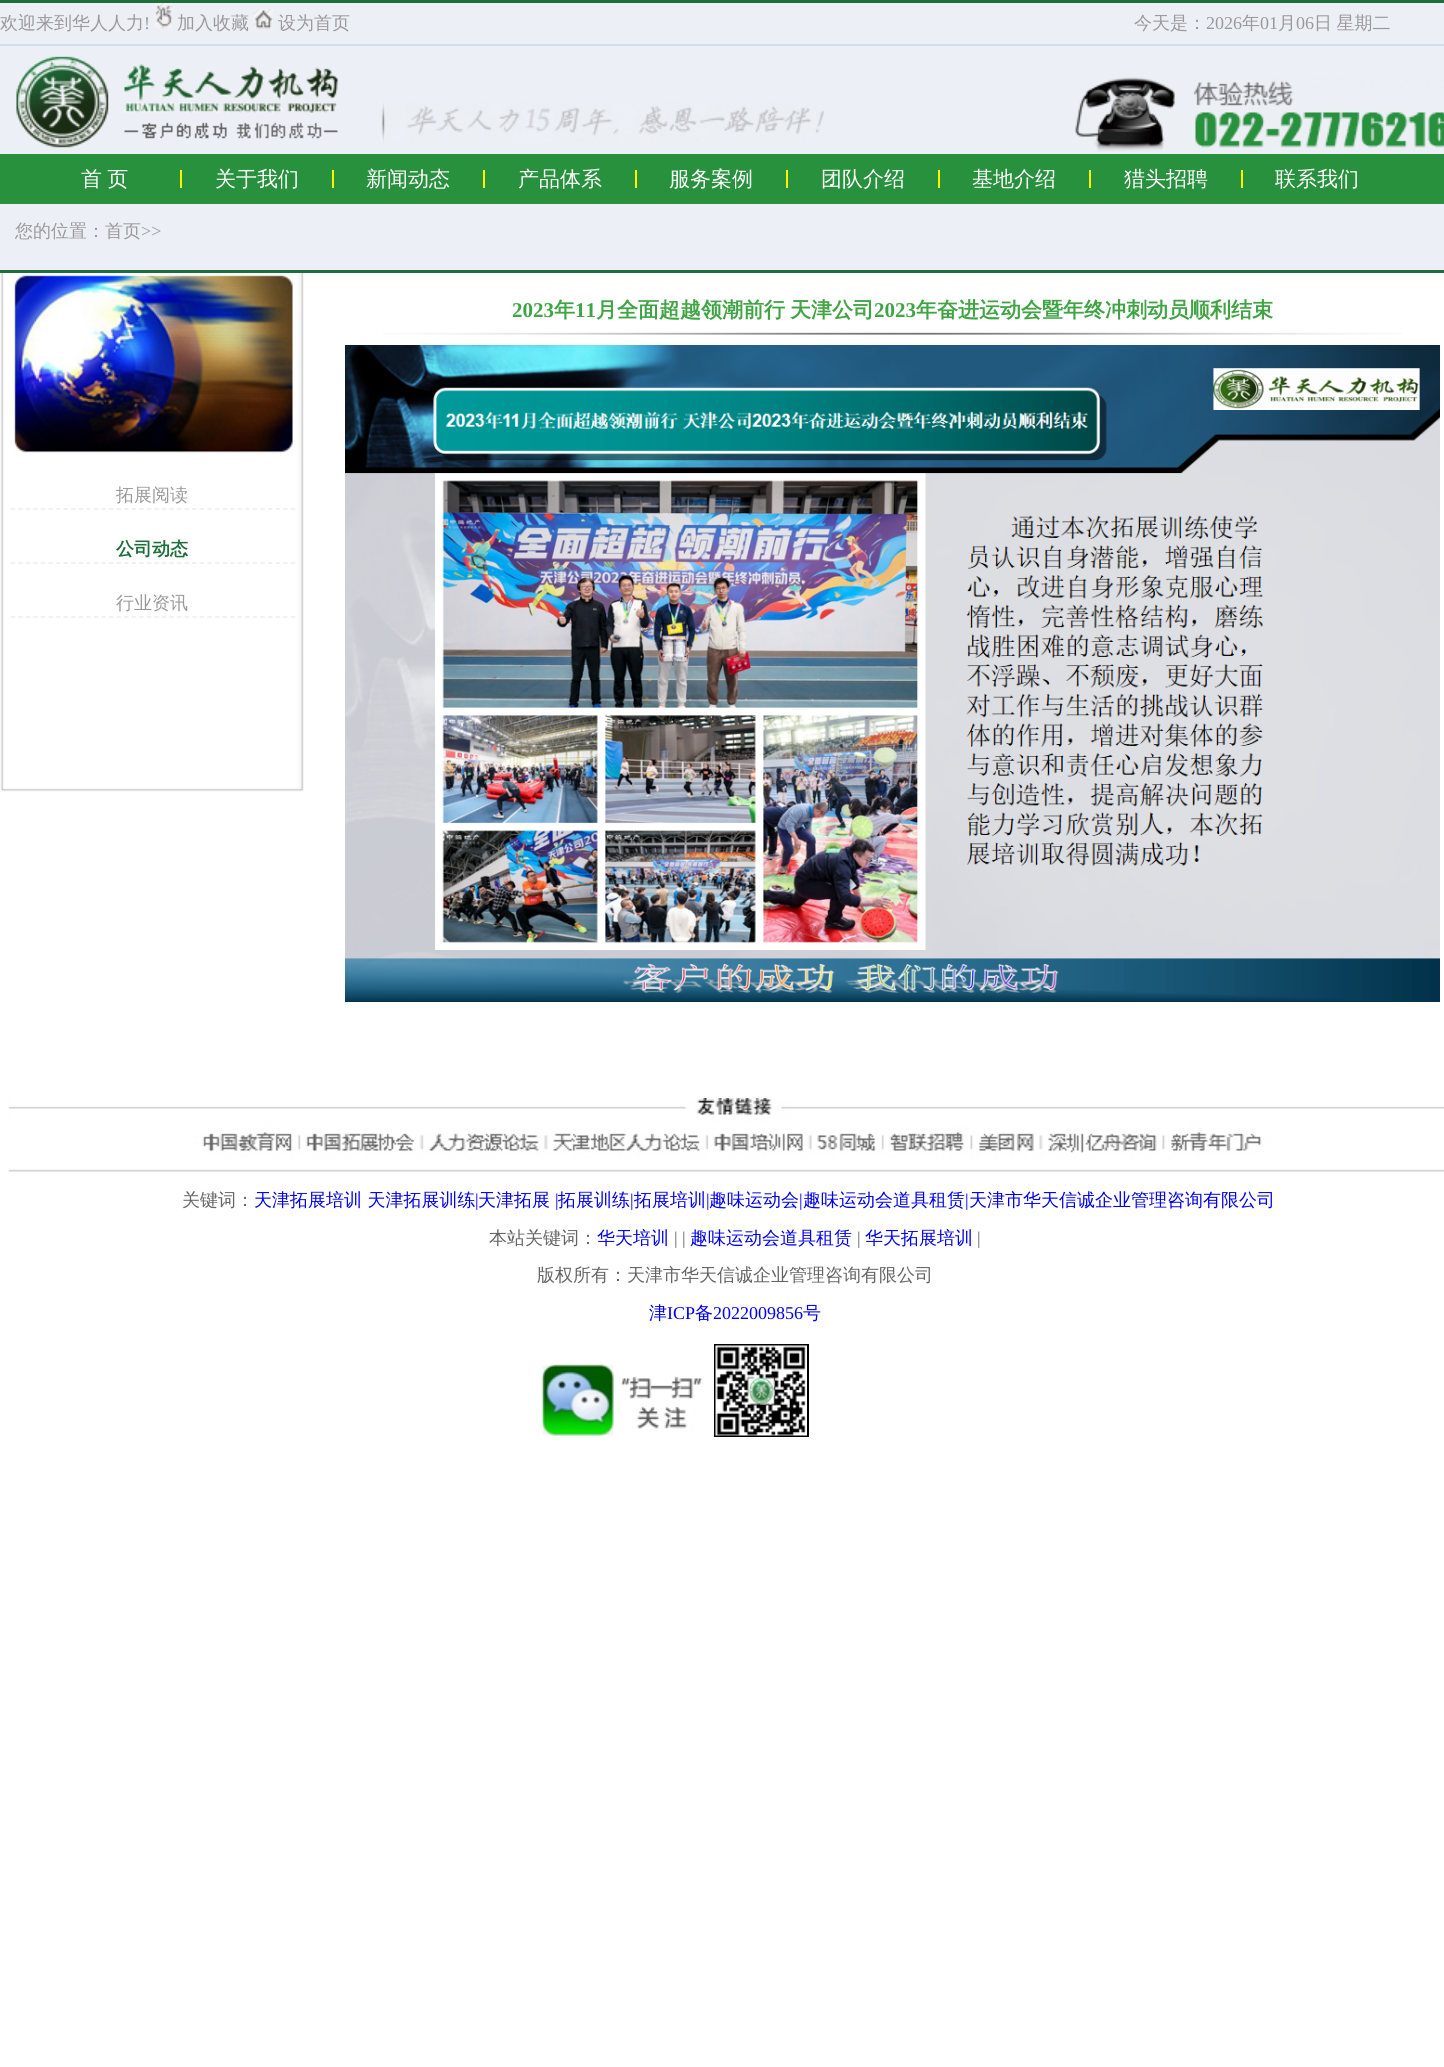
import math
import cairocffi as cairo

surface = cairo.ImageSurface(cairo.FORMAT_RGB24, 1444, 2067)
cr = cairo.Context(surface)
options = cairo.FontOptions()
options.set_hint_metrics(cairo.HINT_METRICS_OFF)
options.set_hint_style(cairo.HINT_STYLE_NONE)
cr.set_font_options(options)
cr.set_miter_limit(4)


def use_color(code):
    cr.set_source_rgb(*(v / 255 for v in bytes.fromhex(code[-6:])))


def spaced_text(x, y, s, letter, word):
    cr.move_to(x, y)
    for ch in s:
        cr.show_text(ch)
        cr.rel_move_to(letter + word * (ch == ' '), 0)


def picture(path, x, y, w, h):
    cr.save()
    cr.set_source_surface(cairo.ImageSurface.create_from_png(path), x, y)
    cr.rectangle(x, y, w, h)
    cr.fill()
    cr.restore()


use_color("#ffffff")
cr.paint()
use_color("#1e6e3b")
cr.rectangle(0, 0, 1444, 3)
cr.fill()
use_color("#eceff6")
cr.rectangle(0, 3, 1444, 267)
cr.fill()
cr.select_font_face("WenQuanYi Zen Hei Medium")
cr.set_font_size(18)
use_color("#999999")
cr.move_to(0, 29)
cr.show_text("欢迎来到华人人力")
cr.select_font_face("Liberation Serif")
cr.move_to(144, 29)
cr.show_text("!")
picture("img1.png", 154, 3, 19, 26)
cr.select_font_face("WenQuanYi Zen Hei Medium")
cr.move_to(177, 29)
cr.show_text("加入收藏")
picture("img2.png", 253, 9, 20, 20)
cr.move_to(278, 29)
cr.show_text("设为首页")
cr.move_to(1134, 29)
cr.show_text("今天是：")
cr.select_font_face("Liberation Serif")
cr.move_to(1206, 29)
cr.show_text("2026")
cr.select_font_face("WenQuanYi Zen Hei Medium")
cr.move_to(1242, 29)
cr.show_text("年")
cr.select_font_face("Liberation Serif")
cr.move_to(1260, 29)
cr.show_text("01")
cr.select_font_face("WenQuanYi Zen Hei Medium")
cr.move_to(1278, 29)
cr.show_text("月")
cr.select_font_face("Liberation Serif")
cr.move_to(1296, 29)
cr.show_text("06")
cr.select_font_face("WenQuanYi Zen Hei Medium")
spaced_text(1314, 29, "日 星期二", 0, -1)
use_color("#d0dded")
cr.rectangle(0, 44, 1444, 2)
cr.fill()
picture("img3.png", 16, 56, 322, 92)
picture("img4.png", 381, 102, 444, 41)
picture("img5.png", 1075, 77, 369, 75)
use_color("#28913d")
cr.rectangle(0, 154, 1444, 50)
cr.fill()
cr.set_font_size(21)
use_color("#ffffff")
spaced_text(81, 186, "首 页", 0, -1)
use_color("#fff100")
cr.rectangle(180, 170, 2, 18)
cr.fill()
use_color("#ffffff")
cr.move_to(215, 186)
cr.show_text("关于我们")
use_color("#fff100")
cr.rectangle(332, 170, 2, 18)
cr.fill()
use_color("#ffffff")
cr.move_to(366, 186)
cr.show_text("新闻动态")
use_color("#fff100")
cr.rectangle(483, 170, 2, 18)
cr.fill()
use_color("#ffffff")
cr.move_to(518, 186)
cr.show_text("产品体系")
use_color("#fff100")
cr.rectangle(635, 170, 2, 18)
cr.fill()
use_color("#ffffff")
cr.move_to(669, 186)
cr.show_text("服务案例")
use_color("#fff100")
cr.rectangle(786, 170, 2, 18)
cr.fill()
use_color("#ffffff")
cr.move_to(821, 186)
cr.show_text("团队介绍")
use_color("#fff100")
cr.rectangle(938, 170, 2, 18)
cr.fill()
use_color("#ffffff")
cr.move_to(972, 186)
cr.show_text("基地介绍")
use_color("#fff100")
cr.rectangle(1089, 170, 2, 18)
cr.fill()
use_color("#ffffff")
cr.move_to(1124, 186)
cr.show_text("猎头招聘")
use_color("#fff100")
cr.rectangle(1241, 170, 2, 18)
cr.fill()
use_color("#ffffff")
cr.move_to(1275, 186)
cr.show_text("联系我们")
cr.set_font_size(18)
use_color("#999999")
cr.move_to(15, 237)
cr.show_text("您的位置：首页")
cr.select_font_face("Liberation Serif")
cr.move_to(141, 237)
cr.show_text(">>")
use_color("#1e6e3b")
cr.rectangle(0, 270, 1444, 3)
cr.fill()
cr.select_font_face("Liberation Serif", cairo.FONT_SLANT_NORMAL, cairo.FONT_WEIGHT_BOLD)
cr.set_font_size(21)
use_color("#40a444")
cr.move_to(512, 317)
cr.show_text("2023")
cr.select_font_face("WenQuanYi Zen Hei", cairo.FONT_SLANT_NORMAL, cairo.FONT_WEIGHT_BOLD)
cr.move_to(554, 317)
cr.show_text("年")
cr.select_font_face("Liberation Serif", cairo.FONT_SLANT_NORMAL, cairo.FONT_WEIGHT_BOLD)
cr.move_to(575, 317)
cr.show_text("11")
cr.select_font_face("WenQuanYi Zen Hei", cairo.FONT_SLANT_NORMAL, cairo.FONT_WEIGHT_BOLD)
cr.move_to(596, 317)
cr.show_text("月全面超越领潮前行")
cr.move_to(790, 317)
cr.show_text("天津公司")
cr.select_font_face("Liberation Serif", cairo.FONT_SLANT_NORMAL, cairo.FONT_WEIGHT_BOLD)
cr.move_to(874, 317)
cr.show_text("2023")
cr.select_font_face("WenQuanYi Zen Hei", cairo.FONT_SLANT_NORMAL, cairo.FONT_WEIGHT_BOLD)
cr.move_to(916, 317)
cr.show_text("年奋进运动会暨年终冲刺动员顺利结束")
picture("img6.png", 383, 332, 1019, 3)
picture("img7.png", 345, 345, 1095, 657)
picture("img8.png", 0, 273, 304, 519)
picture("img9.png", 12, 273, 282, 181)
cr.new_path()
cr.move_to(10.5, 509)
cr.line_to(295.5, 509)
use_color("#ececec")
cr.set_line_width(1.5)
cr.set_dash([4.5, 3.07])
cr.stroke()
cr.select_font_face("WenQuanYi Zen Hei Medium")
cr.set_font_size(18)
use_color("#999999")
cr.move_to(116, 501)
cr.show_text("拓展阅读")
cr.new_path()
cr.move_to(10.5, 563)
cr.line_to(295.5, 563)
use_color("#ececec")
cr.stroke()
cr.select_font_face("WenQuanYi Zen Hei", cairo.FONT_SLANT_NORMAL, cairo.FONT_WEIGHT_BOLD)
use_color("#1e6e3b")
cr.move_to(116, 555)
cr.show_text("公司动态")
cr.new_path()
cr.move_to(10.5, 617)
cr.line_to(295.5, 617)
use_color("#ececec")
cr.stroke()
cr.select_font_face("WenQuanYi Zen Hei Medium")
use_color("#999999")
cr.move_to(116, 609)
cr.show_text("行业资讯")
picture("img10.png", 1, 788, 303, 4)
picture("img11.png", 8, 1098, 1436, 74)
use_color("#646464")
cr.move_to(182, 1206)
cr.show_text("关键词：")
use_color("#0000ee")
cr.move_to(254, 1206)
cr.show_text("天津拓展培训 天津拓展训练")
cr.select_font_face("Liberation Serif")
cr.move_to(475, 1206)
cr.show_text("|")
cr.select_font_face("WenQuanYi Zen Hei Medium")
cr.move_to(478, 1206)
cr.show_text("天津拓展")
cr.select_font_face("Liberation Serif")
cr.move_to(555, 1206)
cr.show_text("|")
cr.select_font_face("WenQuanYi Zen Hei Medium")
cr.move_to(558, 1206)
cr.show_text("拓展训练")
cr.select_font_face("Liberation Serif")
cr.move_to(630, 1206)
cr.show_text("|")
cr.select_font_face("WenQuanYi Zen Hei Medium")
cr.move_to(634, 1206)
cr.show_text("拓展培训")
cr.select_font_face("Liberation Serif")
cr.move_to(706, 1206)
cr.show_text("|")
cr.select_font_face("WenQuanYi Zen Hei Medium")
cr.move_to(709, 1206)
cr.show_text("趣味运动会")
cr.select_font_face("Liberation Serif")
cr.move_to(799, 1206)
cr.show_text("|")
cr.select_font_face("WenQuanYi Zen Hei Medium")
cr.move_to(803, 1206)
cr.show_text("趣味运动会道具租赁")
cr.select_font_face("Liberation Serif")
cr.move_to(965, 1206)
cr.show_text("|")
cr.select_font_face("WenQuanYi Zen Hei Medium")
cr.move_to(969, 1206)
cr.show_text("天津市华天信诚企业管理咨询有限公司")
use_color("#646464")
cr.move_to(489, 1244)
cr.show_text("本站关键词：")
use_color("#0000ee")
cr.move_to(597, 1244)
cr.show_text("华天培训")
cr.select_font_face("Liberation Serif")
use_color("#646464")
cr.move_to(674, 1244)
cr.show_text("| |")
cr.select_font_face("WenQuanYi Zen Hei Medium")
use_color("#0000ee")
cr.move_to(690, 1244)
cr.show_text("趣味运动会道具租赁")
cr.select_font_face("Liberation Serif")
use_color("#646464")
cr.move_to(857, 1244)
cr.show_text("|")
cr.select_font_face("WenQuanYi Zen Hei Medium")
use_color("#0000ee")
cr.move_to(865, 1244)
cr.show_text("华天拓展培训")
cr.select_font_face("Liberation Serif")
use_color("#646464")
cr.move_to(977, 1244)
cr.show_text("|")
cr.select_font_face("WenQuanYi Zen Hei Medium")
cr.move_to(537, 1281)
cr.show_text("版权所有：天津市华天信诚企业管理咨询有限公司")
use_color("#0000ee")
cr.move_to(649, 1319)
cr.show_text("津")
cr.select_font_face("Liberation Serif")
cr.move_to(667, 1319)
cr.show_text("ICP")
cr.select_font_face("WenQuanYi Zen Hei Medium")
cr.move_to(695, 1319)
cr.show_text("备")
cr.select_font_face("Liberation Serif")
cr.move_to(713, 1319)
cr.show_text("2022009856")
cr.select_font_face("WenQuanYi Zen Hei Medium")
cr.move_to(803, 1319)
cr.show_text("号")
cr.rectangle(715, 1345, 93, 91)
use_color("#000000")
cr.set_line_width(2)
cr.set_dash([])
cr.stroke()
picture("img12.png", 541, 1364, 162, 72)
picture("img13.png", 715, 1345, 92, 91)
surface.write_to_png("result.png")
